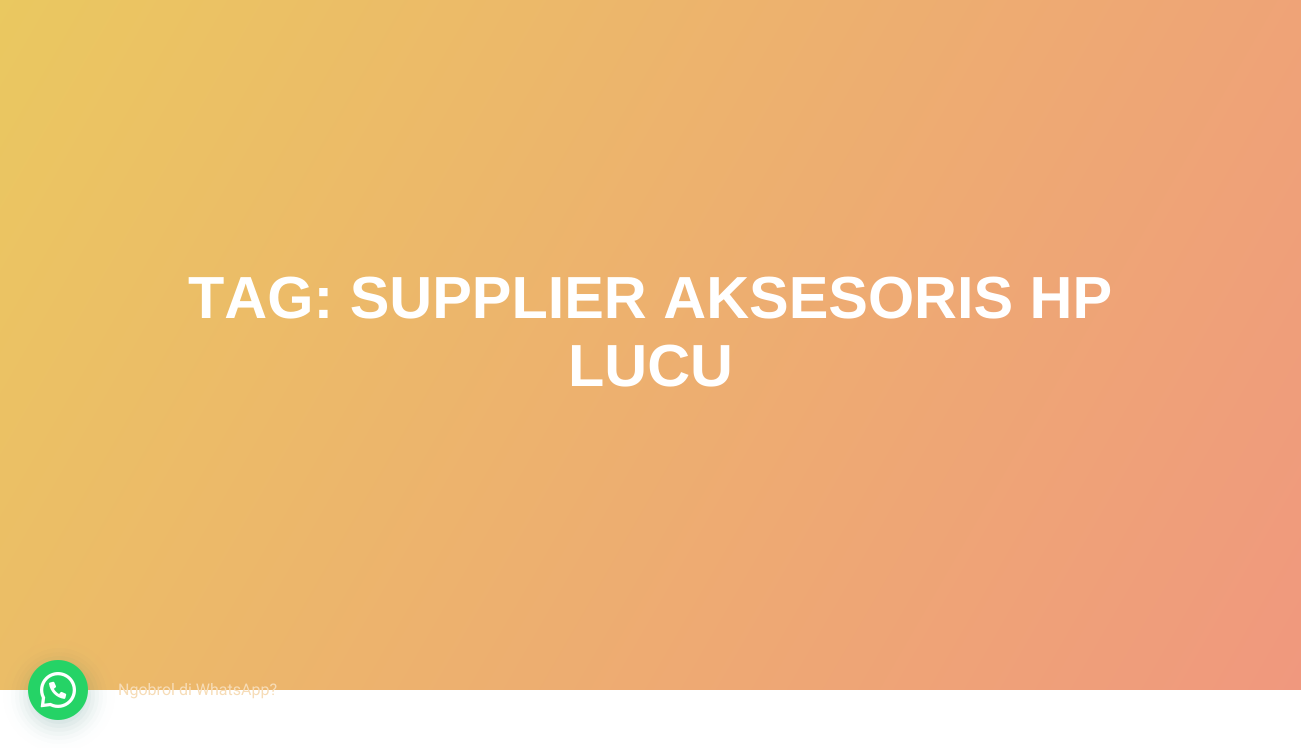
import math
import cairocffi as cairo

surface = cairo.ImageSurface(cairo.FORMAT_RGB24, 1301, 748)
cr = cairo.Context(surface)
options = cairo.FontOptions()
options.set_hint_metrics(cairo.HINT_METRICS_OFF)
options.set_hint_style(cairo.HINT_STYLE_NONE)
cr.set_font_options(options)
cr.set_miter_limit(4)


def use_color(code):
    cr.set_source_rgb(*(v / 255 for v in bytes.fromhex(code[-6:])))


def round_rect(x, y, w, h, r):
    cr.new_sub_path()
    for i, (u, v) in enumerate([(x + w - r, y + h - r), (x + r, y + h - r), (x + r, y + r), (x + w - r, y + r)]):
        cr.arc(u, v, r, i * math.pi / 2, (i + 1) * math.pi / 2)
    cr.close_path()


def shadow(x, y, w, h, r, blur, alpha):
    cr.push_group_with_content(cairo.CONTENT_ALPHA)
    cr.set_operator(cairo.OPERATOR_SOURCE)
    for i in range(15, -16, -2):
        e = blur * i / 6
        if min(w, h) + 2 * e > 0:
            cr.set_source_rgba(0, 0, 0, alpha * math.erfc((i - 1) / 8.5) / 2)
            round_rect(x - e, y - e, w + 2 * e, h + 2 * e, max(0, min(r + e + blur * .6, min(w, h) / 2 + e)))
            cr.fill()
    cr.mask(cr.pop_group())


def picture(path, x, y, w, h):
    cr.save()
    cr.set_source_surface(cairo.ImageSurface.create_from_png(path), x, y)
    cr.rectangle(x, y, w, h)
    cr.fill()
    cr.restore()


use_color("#ffffff")
cr.paint()
gradient = cairo.LinearGradient(13, -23, 1288, 713)
gradient.add_color_stop_rgba(0, 0.918, 0.784, 0.376, 1)
gradient.add_color_stop_rgba(1, 0.941, 0.596, 0.494, 1)
cr.set_source(gradient)
cr.rectangle(0, 0, 1301, 690)
cr.fill()
cr.select_font_face("Liberation Sans", cairo.FONT_SLANT_NORMAL, cairo.FONT_WEIGHT_BOLD)
cr.set_font_size(59.4)
use_color("#ffffff")
cr.move_to(188, 318)
cr.show_text("TAG: SUPPLIER AKSESORIS HP")
cr.move_to(568, 386)
cr.show_text("LUCU")
use_color("#075e54")
shadow(29, 666, 60, 60, 30, 12, 0.24)
use_color("#25d366")
cr.arc(58, 690, 30, 0, 2 * math.pi)
cr.fill()
picture("img1.png", 40, 672, 36, 36)
cr.select_font_face("Roboto")
cr.set_font_size(16)
use_color("#f6dcb7")
cr.move_to(118, 695)
cr.show_text("Ngobrol di WhatsApp?")
surface.write_to_png("result.png")
